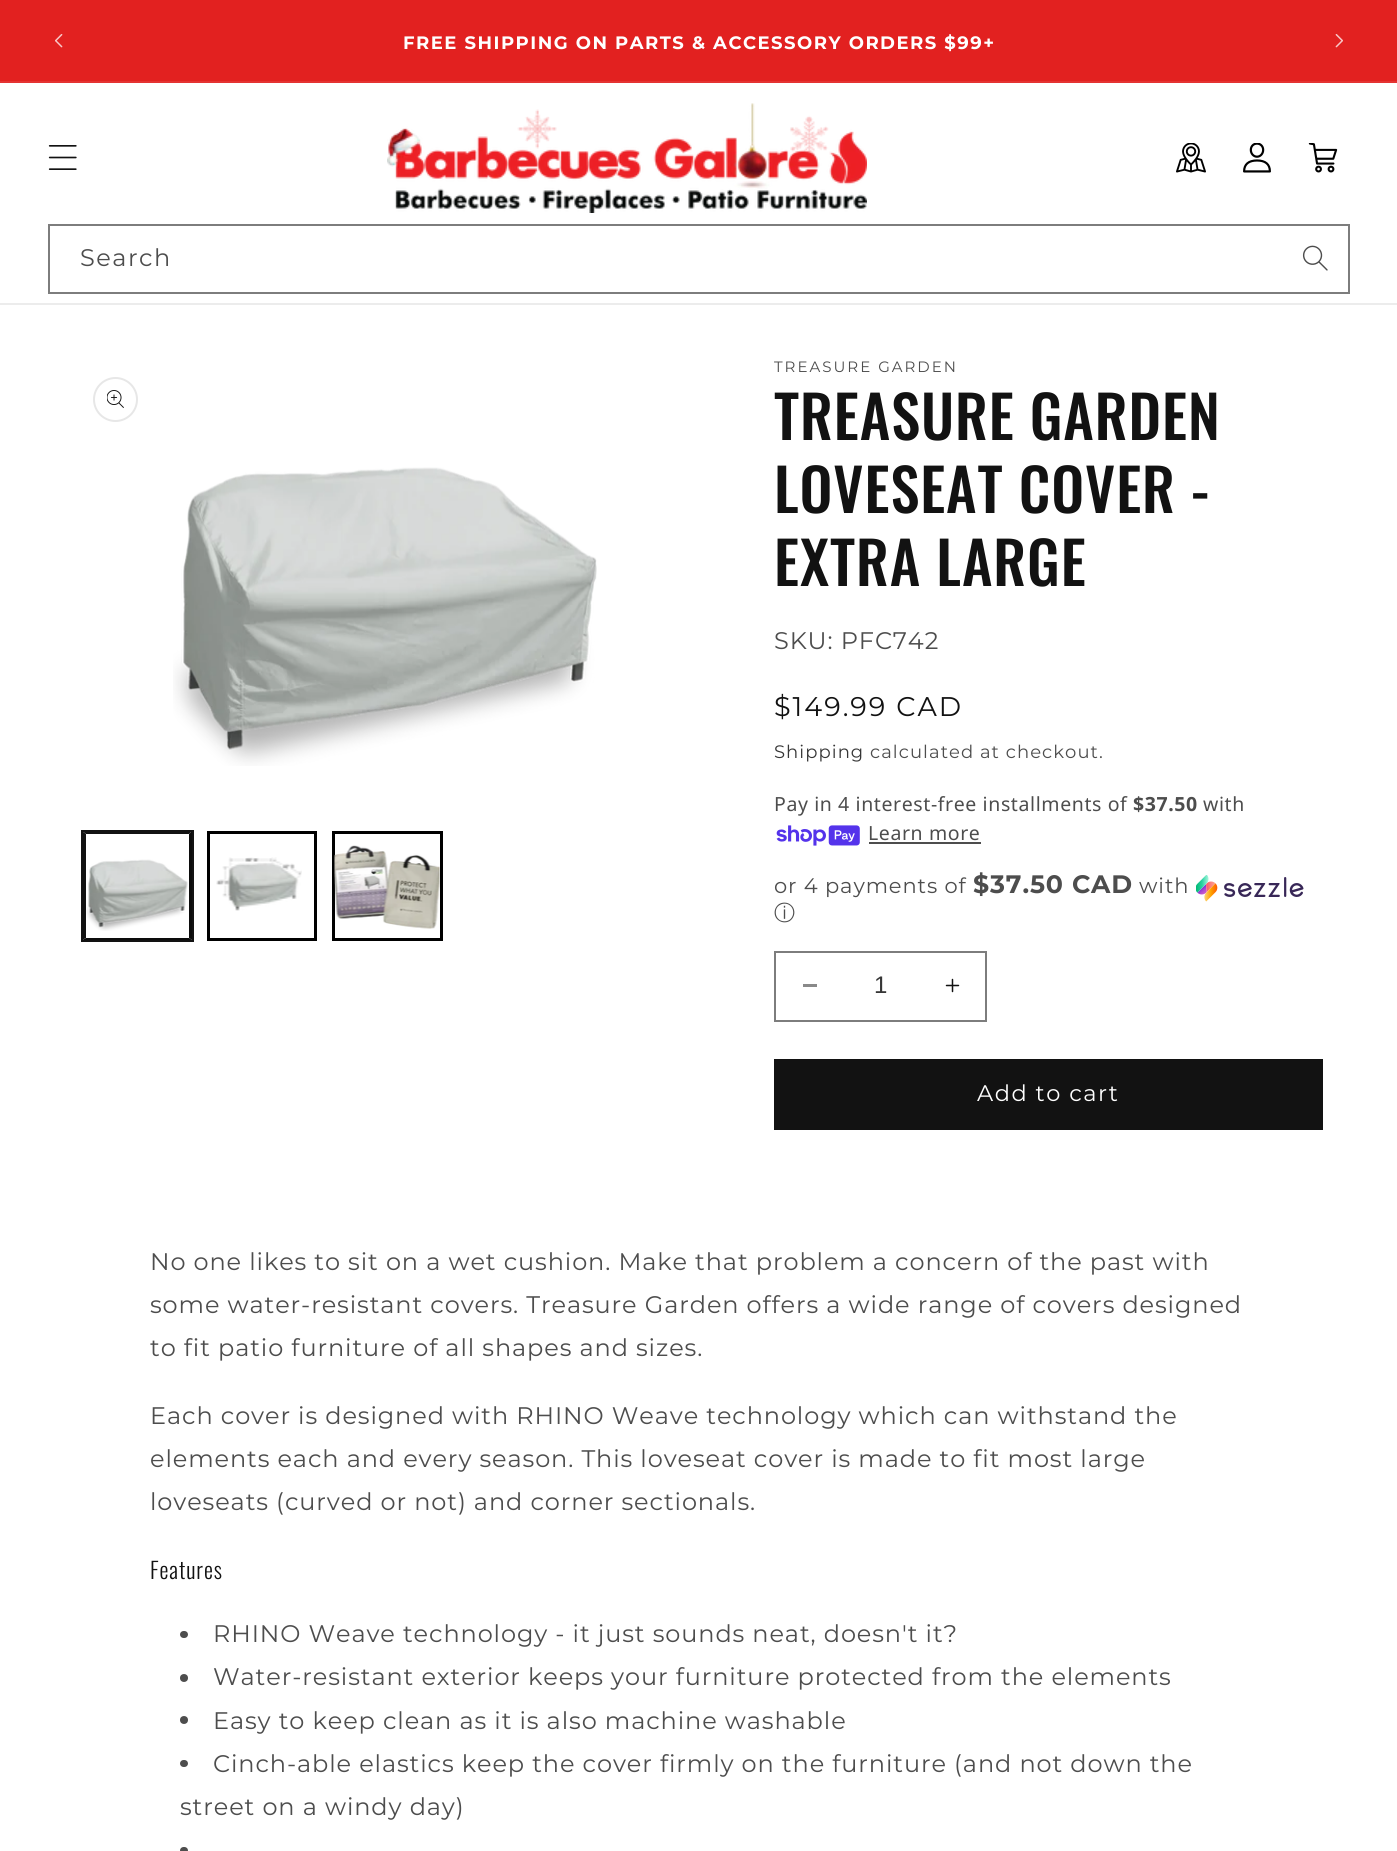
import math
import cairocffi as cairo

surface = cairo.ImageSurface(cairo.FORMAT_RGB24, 1397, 1851)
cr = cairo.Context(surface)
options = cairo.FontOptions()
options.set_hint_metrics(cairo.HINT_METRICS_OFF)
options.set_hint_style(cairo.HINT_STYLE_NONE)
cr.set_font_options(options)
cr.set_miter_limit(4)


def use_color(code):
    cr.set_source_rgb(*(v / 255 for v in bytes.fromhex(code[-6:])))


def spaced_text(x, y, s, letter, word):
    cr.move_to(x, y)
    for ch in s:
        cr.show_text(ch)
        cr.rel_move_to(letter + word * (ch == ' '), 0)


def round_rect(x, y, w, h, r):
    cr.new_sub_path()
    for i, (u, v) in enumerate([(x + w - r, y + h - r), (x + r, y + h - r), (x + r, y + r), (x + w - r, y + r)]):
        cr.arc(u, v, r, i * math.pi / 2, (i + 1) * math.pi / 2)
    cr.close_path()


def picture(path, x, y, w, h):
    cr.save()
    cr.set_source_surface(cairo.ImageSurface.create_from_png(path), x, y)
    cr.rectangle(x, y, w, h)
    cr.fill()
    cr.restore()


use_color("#ffffff")
cr.paint()
use_color("#e22120")
cr.rectangle(0, 0, 1397, 81)
cr.fill()
use_color("#e43332")
cr.rectangle(0, 81, 1397, 2)
cr.fill()
picture("img1.png", 55, 34, 8, 14)
cr.select_font_face("Montserrat", cairo.FONT_SLANT_NORMAL, cairo.FONT_WEIGHT_BOLD)
cr.set_font_size(18)
use_color("#ffffff")
spaced_text(403, 49, "FREE SHIPPING ON PARTS & ACCESSORY ORDERS $99+", 1.5, 0)
picture("img2.png", 1335, 34, 8, 14)
use_color("#ececec")
cr.rectangle(0, 303, 1397, 2)
cr.fill()
picture("img3.png", 48, 145, 29, 25)
picture("img4.png", 387, 103, 480, 110)
picture("img5.png", 1176, 143, 30, 30)
picture("img6.png", 1243, 143, 28, 30)
picture("img7.png", 1308, 143, 30, 30)
picture("img8.png", 1302, 245, 26, 26)
cr.rectangle(49, 225, 1300, 68)
use_color("#7d7d7d")
cr.stroke()
cr.select_font_face("Montserrat Thin")
cr.set_font_size(24)
use_color("#4d4d4d")
spaced_text(80, 266, "Search", 1.5, 0)
cr.new_path()
cr.arc(115.5, 399.5, 21.5, 0, 2 * math.pi)
use_color("#e7e7e7")
cr.stroke()
picture("img9.png", 107, 390, 17, 18)
picture("img10.png", 173, 467, 424, 299)
cr.rectangle(82, 831, 111, 110)
use_color("#121212")
cr.stroke()
cr.new_path()
cr.move_to(82, 831)
cr.line_to(192, 831)
cr.line_to(189, 834)
cr.line_to(86, 834)
cr.close_path()
cr.fill()
use_color("#0c0c0c")
cr.new_path()
cr.move_to(192, 831)
cr.line_to(192, 940)
cr.line_to(189, 938)
cr.line_to(189, 834)
cr.close_path()
cr.fill()
cr.new_path()
cr.move_to(192, 940)
cr.line_to(82, 940)
cr.line_to(86, 938)
cr.line_to(189, 938)
cr.close_path()
cr.fill()
use_color("#121212")
cr.new_path()
cr.move_to(82, 940)
cr.line_to(82, 831)
cr.line_to(86, 834)
cr.line_to(86, 938)
cr.close_path()
cr.fill()
picture("img11.png", 86, 859, 102, 72)
cr.rectangle(208.5, 832.5, 107, 107)
use_color("#000000")
cr.set_line_width(3)
cr.stroke()
picture("img12.png", 216, 857, 86, 54)
cr.rectangle(333.5, 832.5, 108, 107)
cr.stroke()
picture("img13.png", 334, 845, 106, 84)
cr.set_font_size(15)
use_color("#4d4d4d")
spaced_text(774, 372, "TREASURE GARDEN", 2, 0)
cr.select_font_face("Oswald Medium")
cr.set_font_size(58.5)
use_color("#121212")
spaced_text(774, 440, "TREASURE GARDEN", 0.9, 0)
spaced_text(774, 513, "LOVESEAT COVER -", 0.9, 0)
spaced_text(774, 586, "EXTRA LARGE", 0.9, 0)
cr.select_font_face("Montserrat Thin")
cr.set_font_size(24)
use_color("#4d4d4d")
spaced_text(774, 649, "SKU: PFC742", 0.9, 0)
cr.set_font_size(27)
use_color("#121212")
spaced_text(774, 716, "$149.99 CAD", 2, 0)
cr.set_font_size(18)
use_color("#363636")
spaced_text(774, 758, "Shipping", 1.05, 0)
use_color("#4d4d4d")
spaced_text(870, 758, "calculated at checkout.", 1.05, 0)
cr.select_font_face("Noto Sans")
cr.set_font_size(19.5)
spaced_text(774, 811, "Pay in 4 interest-free installments of", 0.6, 0)
cr.select_font_face("Noto Sans", cairo.FONT_SLANT_NORMAL, cairo.FONT_WEIGHT_BOLD)
spaced_text(1133, 811, "$37.50", 0.6, 0)
cr.select_font_face("Noto Sans")
spaced_text(1203, 811, "with", 0.6, 0)
picture("img14.png", 776, 825, 84, 21)
spaced_text(868, 840, "Learn more", 0.6, 0)
cr.rectangle(869, 842, 112, 2)
cr.fill()
cr.select_font_face("Montserrat Thin")
cr.set_font_size(21)
spaced_text(774, 893, "or 4 payments of", 0.9, 0)
cr.select_font_face("Montserrat", cairo.FONT_SLANT_NORMAL, cairo.FONT_WEIGHT_BOLD)
cr.set_font_size(25.25)
spaced_text(973, 893, "$37.50 CAD", 0.9, 0)
cr.select_font_face("Montserrat Thin")
cr.set_font_size(21)
spaced_text(1139, 893, "with", 0.9, 0)
picture("img15.png", 1196, 875, 108, 27)
cr.select_font_face("WenQuanYi Zen Hei Medium")
spaced_text(774, 920, "ⓘ", 0.9, 0)
use_color("#898989")
cr.rectangle(803, 984, 14, 3)
cr.fill()
picture("img16.png", 945, 978, 15, 15)
cr.rectangle(775, 952, 211, 69)
use_color("#7d7d7d")
cr.set_line_width(2)
cr.stroke()
cr.select_font_face("Liberation Sans")
cr.set_font_size(24)
use_color("#363636")
cr.move_to(874, 993)
cr.show_text("1")
use_color("#121212")
cr.rectangle(774, 1059, 549, 71)
cr.fill()
cr.select_font_face("Montserrat Thin")
cr.set_font_size(22.5)
use_color("#ffffff")
spaced_text(977, 1101, "Add to cart", 1.5, 0)
cr.set_font_size(24)
use_color("#4d4d4d")
spaced_text(150, 1270, "No one likes to sit on a wet cushion. Make that problem a concern of the past with", 0.9, 0)
spaced_text(150, 1313, "some water-resistant covers. Treasure Garden offers a wide range of covers designed", 0.9, 0)
spaced_text(150, 1356, "to fit patio furniture of all shapes and sizes.", 0.9, 0)
spaced_text(150, 1424, "Each cover is designed with RHINO Weave technology which can withstand the", 0.9, 0)
spaced_text(150, 1467, "elements each and every season. This loveseat cover is made to fit most large", 0.9, 0)
spaced_text(150, 1510, "loveseats (curved or not) and corner sectionals.", 0.9, 0)
cr.select_font_face("Oswald Light")
cr.set_font_size(22.5)
use_color("#121212")
spaced_text(150, 1579, "Features", 0.9, 0)
use_color("#4d4d4d")
round_rect(180, 1631, 8, 7, 3.5)
cr.fill()
cr.select_font_face("Montserrat Thin")
cr.set_font_size(24)
spaced_text(213, 1642, "RHINO Weave technology - it just sounds neat, doesn't it?", 0.9, 0)
cr.new_path()
cr.arc(184, 1678, 4, 0, 2 * math.pi)
cr.fill()
spaced_text(213, 1685, "Water-resistant exterior keeps your furniture protected from the elements", 0.9, 0)
cr.new_path()
cr.arc(184, 1720, 4, 0, 2 * math.pi)
cr.fill()
spaced_text(213, 1729, "Easy to keep clean as it is also machine washable", 0.9, 0)
round_rect(180, 1760, 8, 7, 3.5)
cr.fill()
spaced_text(213, 1772, "Cinch-able elastics keep the cover firmly on the furniture (and not down the", 0.9, 0)
spaced_text(180, 1815, "street on a windy day)", 0.9, 0)
round_rect(180, 1847, 8, 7, 3.5)
cr.fill()
surface.write_to_png("result.png")
